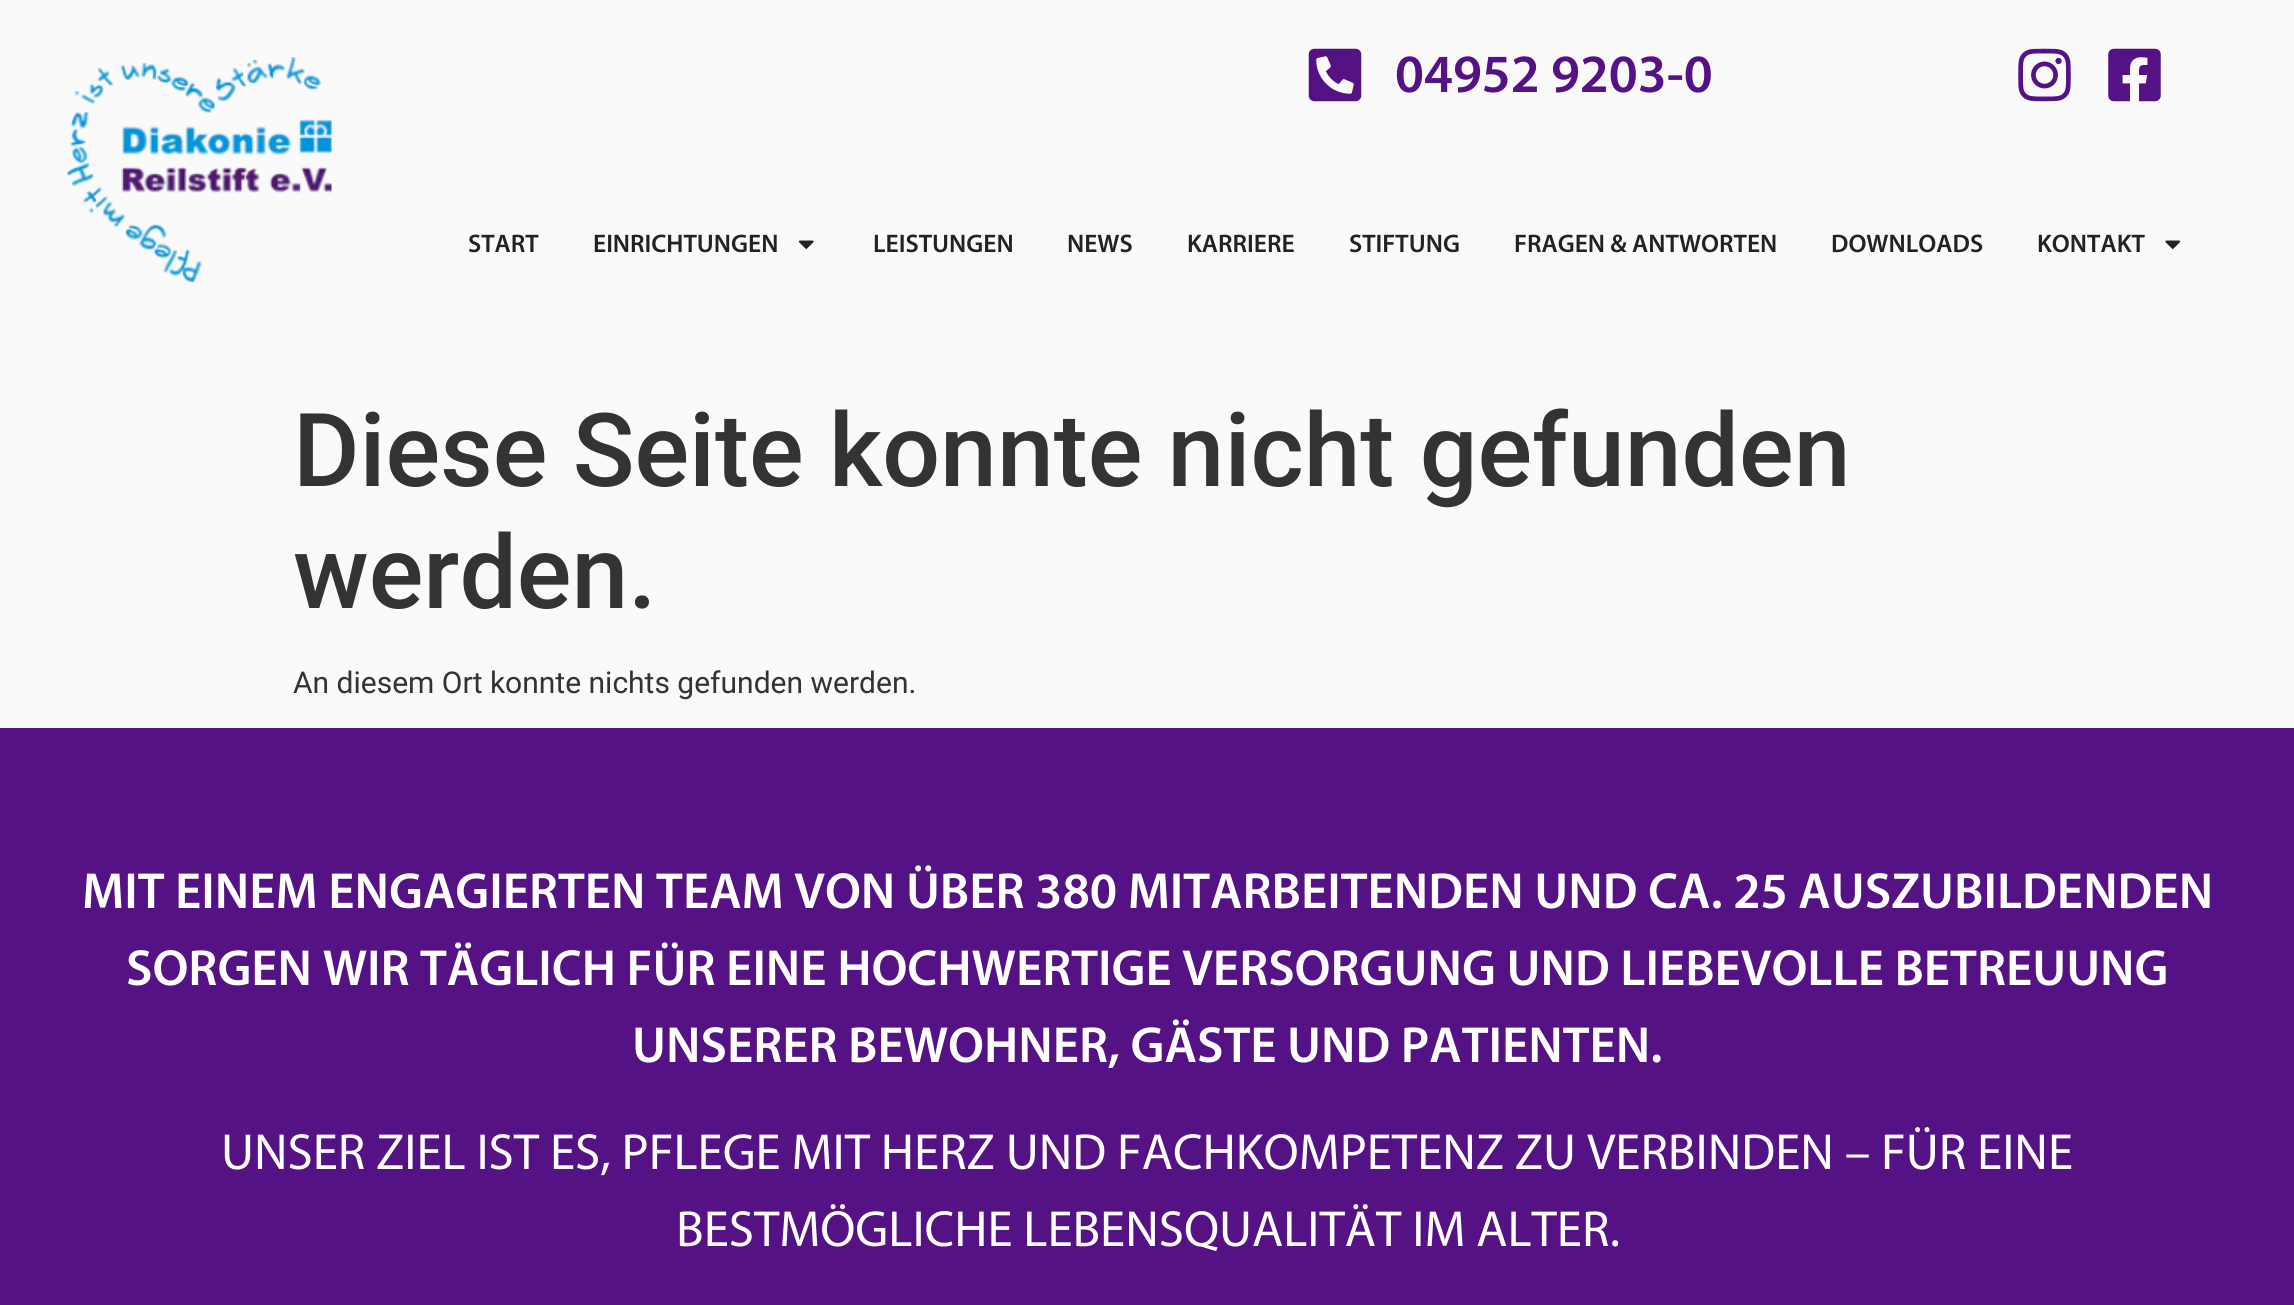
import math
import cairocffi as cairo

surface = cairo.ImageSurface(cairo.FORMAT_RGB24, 2294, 1305)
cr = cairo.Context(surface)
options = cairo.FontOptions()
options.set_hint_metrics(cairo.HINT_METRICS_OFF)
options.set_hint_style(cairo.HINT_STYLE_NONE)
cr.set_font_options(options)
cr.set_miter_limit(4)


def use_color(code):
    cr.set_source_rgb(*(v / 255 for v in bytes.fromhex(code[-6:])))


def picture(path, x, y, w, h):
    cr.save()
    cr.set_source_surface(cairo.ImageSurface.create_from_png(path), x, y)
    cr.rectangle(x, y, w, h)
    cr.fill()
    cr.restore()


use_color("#fafafa")
cr.paint()
picture("img1.png", 1308, 48, 54, 54)
cr.select_font_face("Myriad SemiBold")
cr.set_font_size(54)
use_color("#551285")
cr.move_to(1395, 92)
cr.show_text("04952 9203-0")
picture("img2.png", 2018, 48, 53, 54)
picture("img3.png", 2108, 48, 53, 54)
picture("img4.png", 67, 57, 265, 225)
cr.set_font_size(25.5)
use_color("#222222")
cr.move_to(468, 252)
cr.show_text("START")
cr.move_to(593, 252)
cr.show_text("EINRICHTUNGEN")
picture("img5.png", 798, 240, 16, 9)
cr.move_to(873, 252)
cr.show_text("LEISTUNGEN")
cr.move_to(1067, 252)
cr.show_text("NEWS")
cr.move_to(1187, 252)
cr.show_text("KARRIERE")
cr.move_to(1349, 252)
cr.show_text("STIFTUNG")
cr.move_to(1514, 252)
cr.show_text("FRAGEN & ANTWORTEN")
cr.move_to(1831, 252)
cr.show_text("DOWNLOADS")
cr.move_to(2037, 252)
cr.show_text("KONTAKT")
picture("img6.png", 2165, 240, 16, 9)
cr.select_font_face("Roboto Medium")
cr.set_font_size(102)
use_color("#333333")
cr.move_to(293, 486)
cr.show_text("Diese Seite konnte nicht gefunden")
cr.move_to(293, 608)
cr.show_text("werden.")
cr.select_font_face("Roboto")
cr.set_font_size(30)
cr.move_to(293, 693)
cr.show_text("An diesem Ort konnte nichts gefunden werden.")
use_color("#551285")
cr.rectangle(0, 728, 2294, 577)
cr.fill()
cr.select_font_face("Myriad SemiBold")
cr.set_font_size(51)
use_color("#ffffff")
cr.move_to(82, 908)
cr.show_text("MIT EINEM ENGAGIERTEN TEAM VON ÜBER 380 MITARBEITENDEN UND CA. 25 AUSZUBILDENDEN")
cr.move_to(126, 985)
cr.show_text("SORGEN WIR TÄGLICH FÜR EINE HOCHWERTIGE VERSORGUNG UND LIEBEVOLLE BETREUUNG")
cr.move_to(632, 1062)
cr.show_text("UNSERER BEWOHNER, GÄSTE UND PATIENTEN.")
cr.select_font_face("Myriad")
cr.move_to(221, 1169)
cr.show_text("UNSER ZIEL IST ES, PFLEGE MIT HERZ UND FACHKOMPETENZ ZU VERBINDEN – FÜR EINE")
cr.move_to(676, 1246)
cr.show_text("BESTMÖGLICHE LEBENSQUALITÄT IM ALTER.")
surface.write_to_png("result.png")
